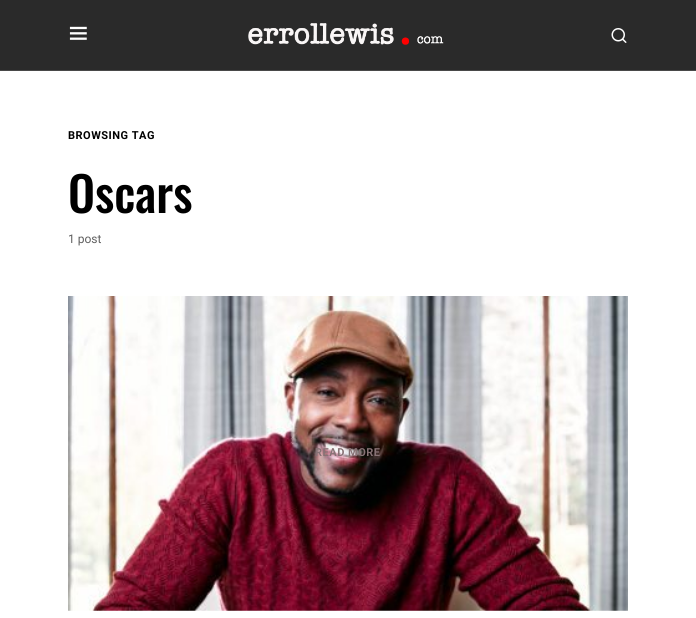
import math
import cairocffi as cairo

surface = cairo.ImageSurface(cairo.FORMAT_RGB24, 696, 618)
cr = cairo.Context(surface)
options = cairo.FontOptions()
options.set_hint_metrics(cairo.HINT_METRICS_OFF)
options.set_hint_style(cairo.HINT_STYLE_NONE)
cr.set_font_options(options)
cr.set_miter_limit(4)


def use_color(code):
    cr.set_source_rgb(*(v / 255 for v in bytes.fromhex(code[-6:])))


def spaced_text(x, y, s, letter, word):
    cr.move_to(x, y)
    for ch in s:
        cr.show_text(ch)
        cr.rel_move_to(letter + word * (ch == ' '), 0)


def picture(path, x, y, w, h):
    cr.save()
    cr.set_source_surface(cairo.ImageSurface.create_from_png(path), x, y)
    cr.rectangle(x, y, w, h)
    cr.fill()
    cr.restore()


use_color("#ffffff")
cr.paint()
use_color("#2a2a2a")
cr.rectangle(0, 0, 696, 70)
cr.fill()
use_color("#494949")
cr.rectangle(0, 70, 696, 1)
cr.fill()
picture("img1.png", 69, 26, 18, 14)
picture("img2.png", 248, 23, 196, 22)
picture("img3.png", 611, 28, 16, 15)
cr.select_font_face("Roboto", cairo.FONT_SLANT_NORMAL, cairo.FONT_WEIGHT_BOLD)
cr.set_font_size(11)
use_color("#000000")
spaced_text(68, 139, "BROWSING TAG", 0.5, 0)
cr.select_font_face("Oswald Medium")
cr.set_font_size(48)
cr.move_to(68, 213)
cr.show_text("Oscars")
cr.select_font_face("Roboto")
cr.set_font_size(12)
use_color("#5e5e5e")
cr.move_to(68, 243)
cr.show_text("1 post")
picture("img4.png", 68, 296, 560, 315)
cr.select_font_face("Roboto", cairo.FONT_SLANT_NORMAL, cairo.FONT_WEIGHT_BOLD)
cr.set_font_size(11)
use_color("#877275")
spaced_text(315, 456, "READ MORE", 0.5, 0)
surface.write_to_png("result.png")
